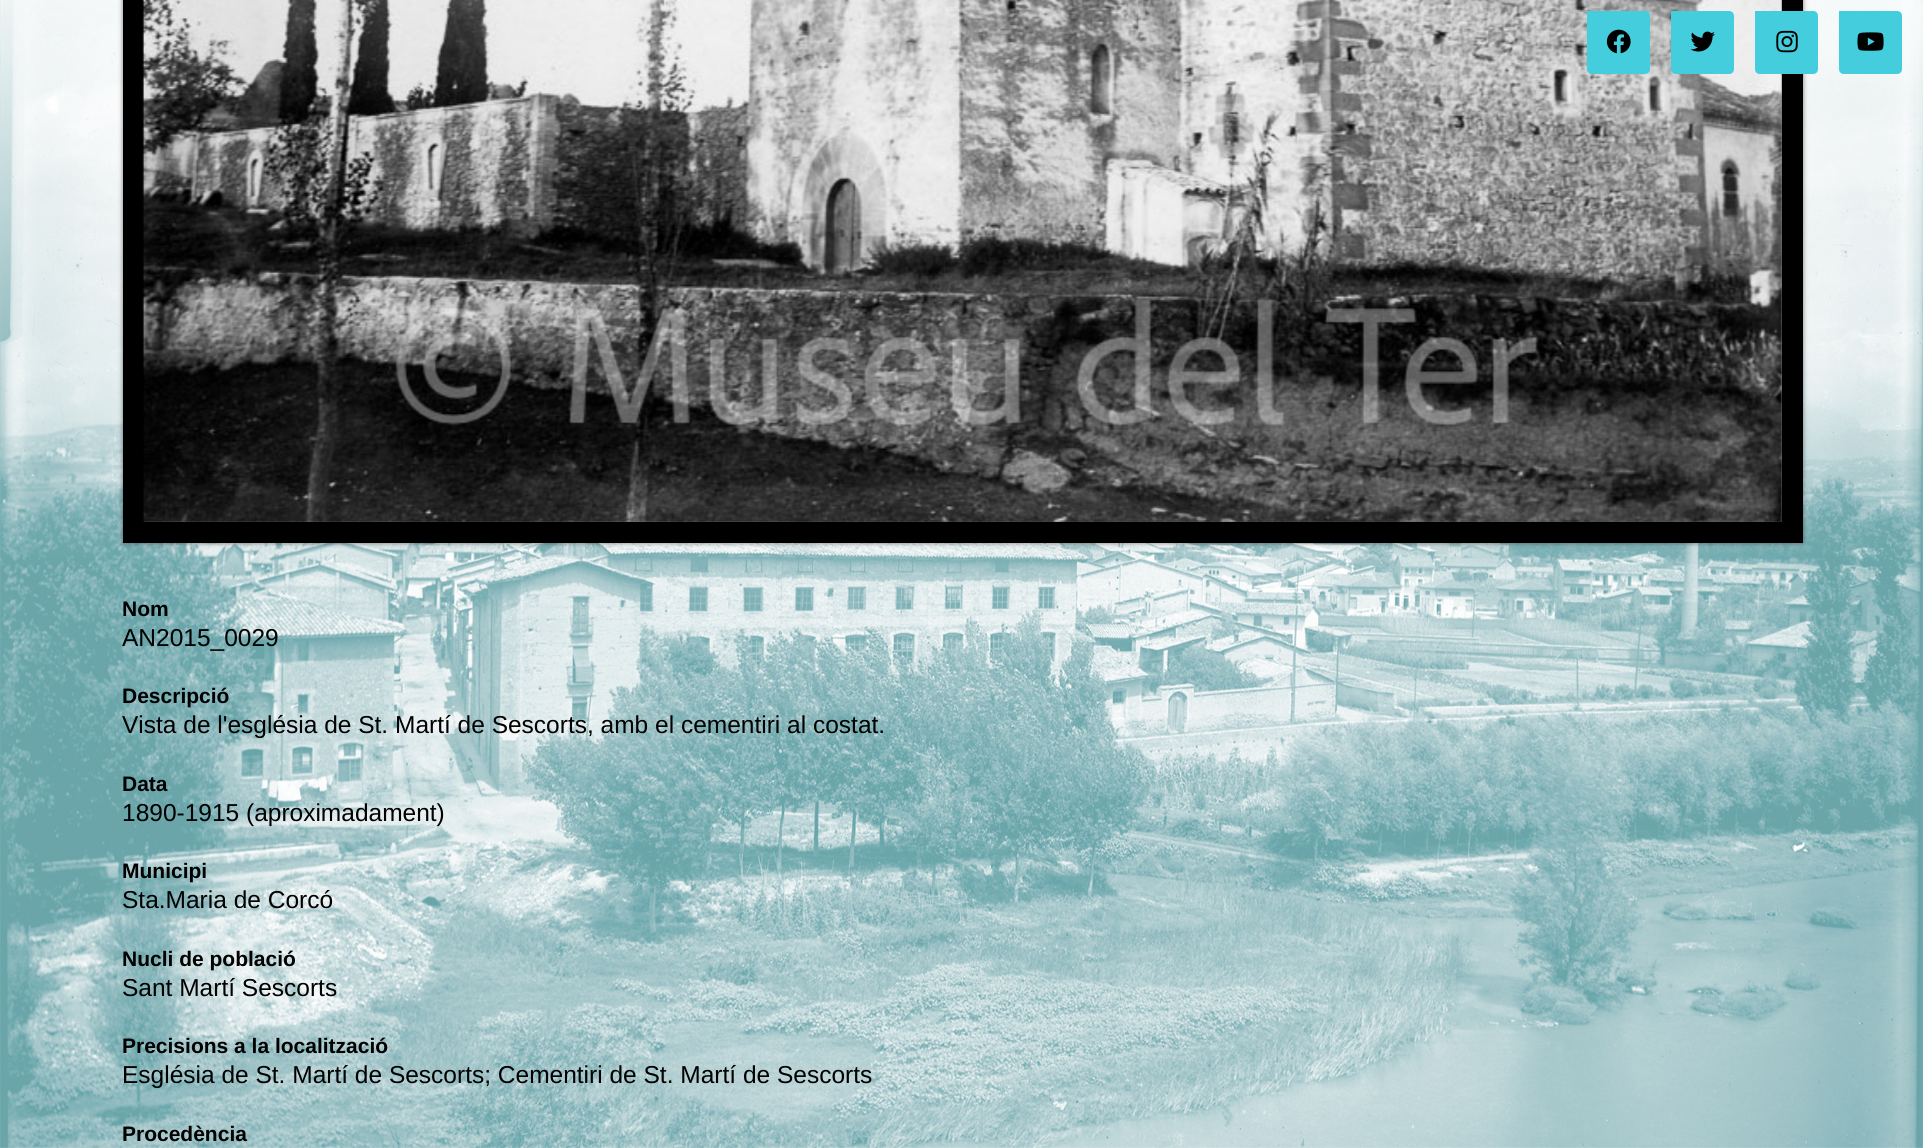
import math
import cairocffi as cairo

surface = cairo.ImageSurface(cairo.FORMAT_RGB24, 1923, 1148)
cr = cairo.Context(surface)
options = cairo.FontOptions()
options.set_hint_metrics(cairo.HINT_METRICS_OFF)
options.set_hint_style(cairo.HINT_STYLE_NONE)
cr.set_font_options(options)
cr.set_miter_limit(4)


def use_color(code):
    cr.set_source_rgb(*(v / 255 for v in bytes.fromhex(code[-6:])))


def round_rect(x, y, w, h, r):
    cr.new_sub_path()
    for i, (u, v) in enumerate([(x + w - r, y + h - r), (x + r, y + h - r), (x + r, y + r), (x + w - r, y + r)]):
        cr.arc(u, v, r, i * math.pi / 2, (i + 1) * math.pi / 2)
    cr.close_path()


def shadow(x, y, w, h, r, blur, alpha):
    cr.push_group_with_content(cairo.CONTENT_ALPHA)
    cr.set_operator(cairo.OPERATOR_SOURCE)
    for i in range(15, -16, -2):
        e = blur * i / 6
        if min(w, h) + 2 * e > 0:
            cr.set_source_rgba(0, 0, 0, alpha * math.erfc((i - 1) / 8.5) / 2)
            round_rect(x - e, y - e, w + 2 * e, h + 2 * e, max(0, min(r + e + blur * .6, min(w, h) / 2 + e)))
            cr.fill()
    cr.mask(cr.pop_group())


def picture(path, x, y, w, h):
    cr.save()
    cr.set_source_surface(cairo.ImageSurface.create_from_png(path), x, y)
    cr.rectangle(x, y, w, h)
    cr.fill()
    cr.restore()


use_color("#ffffff")
cr.paint()
picture("img1.png", 0, 0, 1923, 1148)
use_color("#000000")
shadow(123, -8, 1680, 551, 0, 2.5, 0.5)
cr.rectangle(133.5, -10.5, 1659, 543)
use_color("#000000")
cr.set_line_width(21)
cr.stroke()
picture("img6.png", 142, 0, 1640, 522)
use_color("#44cedd")
cr.new_path()
cr.move_to(1587, 11)
cr.line_to(1645, 11)
cr.curve_to(1648, 11, 1650, 13, 1650, 16)
cr.line_to(1650, 69)
cr.curve_to(1650, 72, 1648, 74, 1645, 74)
cr.line_to(1592, 74)
cr.curve_to(1589, 74, 1587, 72, 1587, 69)
cr.close_path()
cr.fill()
picture("img2.png", 1606, 29, 25, 25)
cr.new_path()
cr.move_to(1671, 11)
cr.line_to(1729, 11)
cr.curve_to(1732, 11, 1734, 13, 1734, 16)
cr.line_to(1734, 69)
cr.curve_to(1734, 72, 1732, 74, 1729, 74)
cr.line_to(1676, 74)
cr.curve_to(1673, 74, 1671, 72, 1671, 69)
cr.close_path()
cr.fill()
picture("img3.png", 1690, 31, 25, 21)
cr.new_path()
cr.move_to(1755, 11)
cr.line_to(1813, 11)
cr.curve_to(1816, 11, 1818, 13, 1818, 16)
cr.line_to(1818, 69)
cr.curve_to(1818, 72, 1816, 74, 1813, 74)
cr.line_to(1760, 74)
cr.curve_to(1757, 74, 1755, 72, 1755, 69)
cr.close_path()
cr.fill()
picture("img4.png", 1776, 30, 22, 23)
cr.new_path()
cr.move_to(1839, 11)
cr.line_to(1897, 11)
cr.curve_to(1900, 11, 1902, 13, 1902, 16)
cr.line_to(1902, 69)
cr.curve_to(1902, 72, 1900, 74, 1897, 74)
cr.line_to(1844, 74)
cr.curve_to(1841, 74, 1839, 72, 1839, 69)
cr.close_path()
cr.fill()
picture("img5.png", 1857, 32, 27, 19)
cr.select_font_face("Liberation Sans", cairo.FONT_SLANT_NORMAL, cairo.FONT_WEIGHT_BOLD)
cr.set_font_size(21)
use_color("#000000")
cr.move_to(122, 616)
cr.show_text("Nom")
cr.select_font_face("Liberation Sans")
cr.set_font_size(24.5)
cr.move_to(122, 646)
cr.show_text("AN2015_0029")
cr.select_font_face("Liberation Sans", cairo.FONT_SLANT_NORMAL, cairo.FONT_WEIGHT_BOLD)
cr.set_font_size(21)
cr.move_to(122, 703)
cr.show_text("Descripció")
cr.select_font_face("Liberation Sans")
cr.set_font_size(24.5)
cr.move_to(122, 733)
cr.show_text("Vista de l'església de St. Martí de Sescorts, amb el cementiri al costat.")
cr.select_font_face("Liberation Sans", cairo.FONT_SLANT_NORMAL, cairo.FONT_WEIGHT_BOLD)
cr.set_font_size(21)
cr.move_to(122, 791)
cr.show_text("Data")
cr.select_font_face("Liberation Sans")
cr.set_font_size(24.5)
cr.move_to(122, 821)
cr.show_text("1890-1915 (aproximadament)")
cr.select_font_face("Liberation Sans", cairo.FONT_SLANT_NORMAL, cairo.FONT_WEIGHT_BOLD)
cr.set_font_size(21)
cr.move_to(122, 878)
cr.show_text("Municipi")
cr.select_font_face("Liberation Sans")
cr.set_font_size(24.5)
cr.move_to(122, 908)
cr.show_text("Sta.Maria de Corcó")
cr.select_font_face("Liberation Sans", cairo.FONT_SLANT_NORMAL, cairo.FONT_WEIGHT_BOLD)
cr.set_font_size(21)
cr.move_to(122, 966)
cr.show_text("Nucli de població")
cr.select_font_face("Liberation Sans")
cr.set_font_size(24.5)
cr.move_to(122, 996)
cr.show_text("Sant Martí Sescorts")
cr.select_font_face("Liberation Sans", cairo.FONT_SLANT_NORMAL, cairo.FONT_WEIGHT_BOLD)
cr.set_font_size(21)
cr.move_to(122, 1053)
cr.show_text("Precisions a la localització")
cr.select_font_face("Liberation Sans")
cr.set_font_size(24.5)
cr.move_to(122, 1083)
cr.show_text("Església de St. Martí de Sescorts; Cementiri de St. Martí de Sescorts")
cr.select_font_face("Liberation Sans", cairo.FONT_SLANT_NORMAL, cairo.FONT_WEIGHT_BOLD)
cr.set_font_size(21)
cr.move_to(122, 1141)
cr.show_text("Procedència")
surface.write_to_png("result.png")
